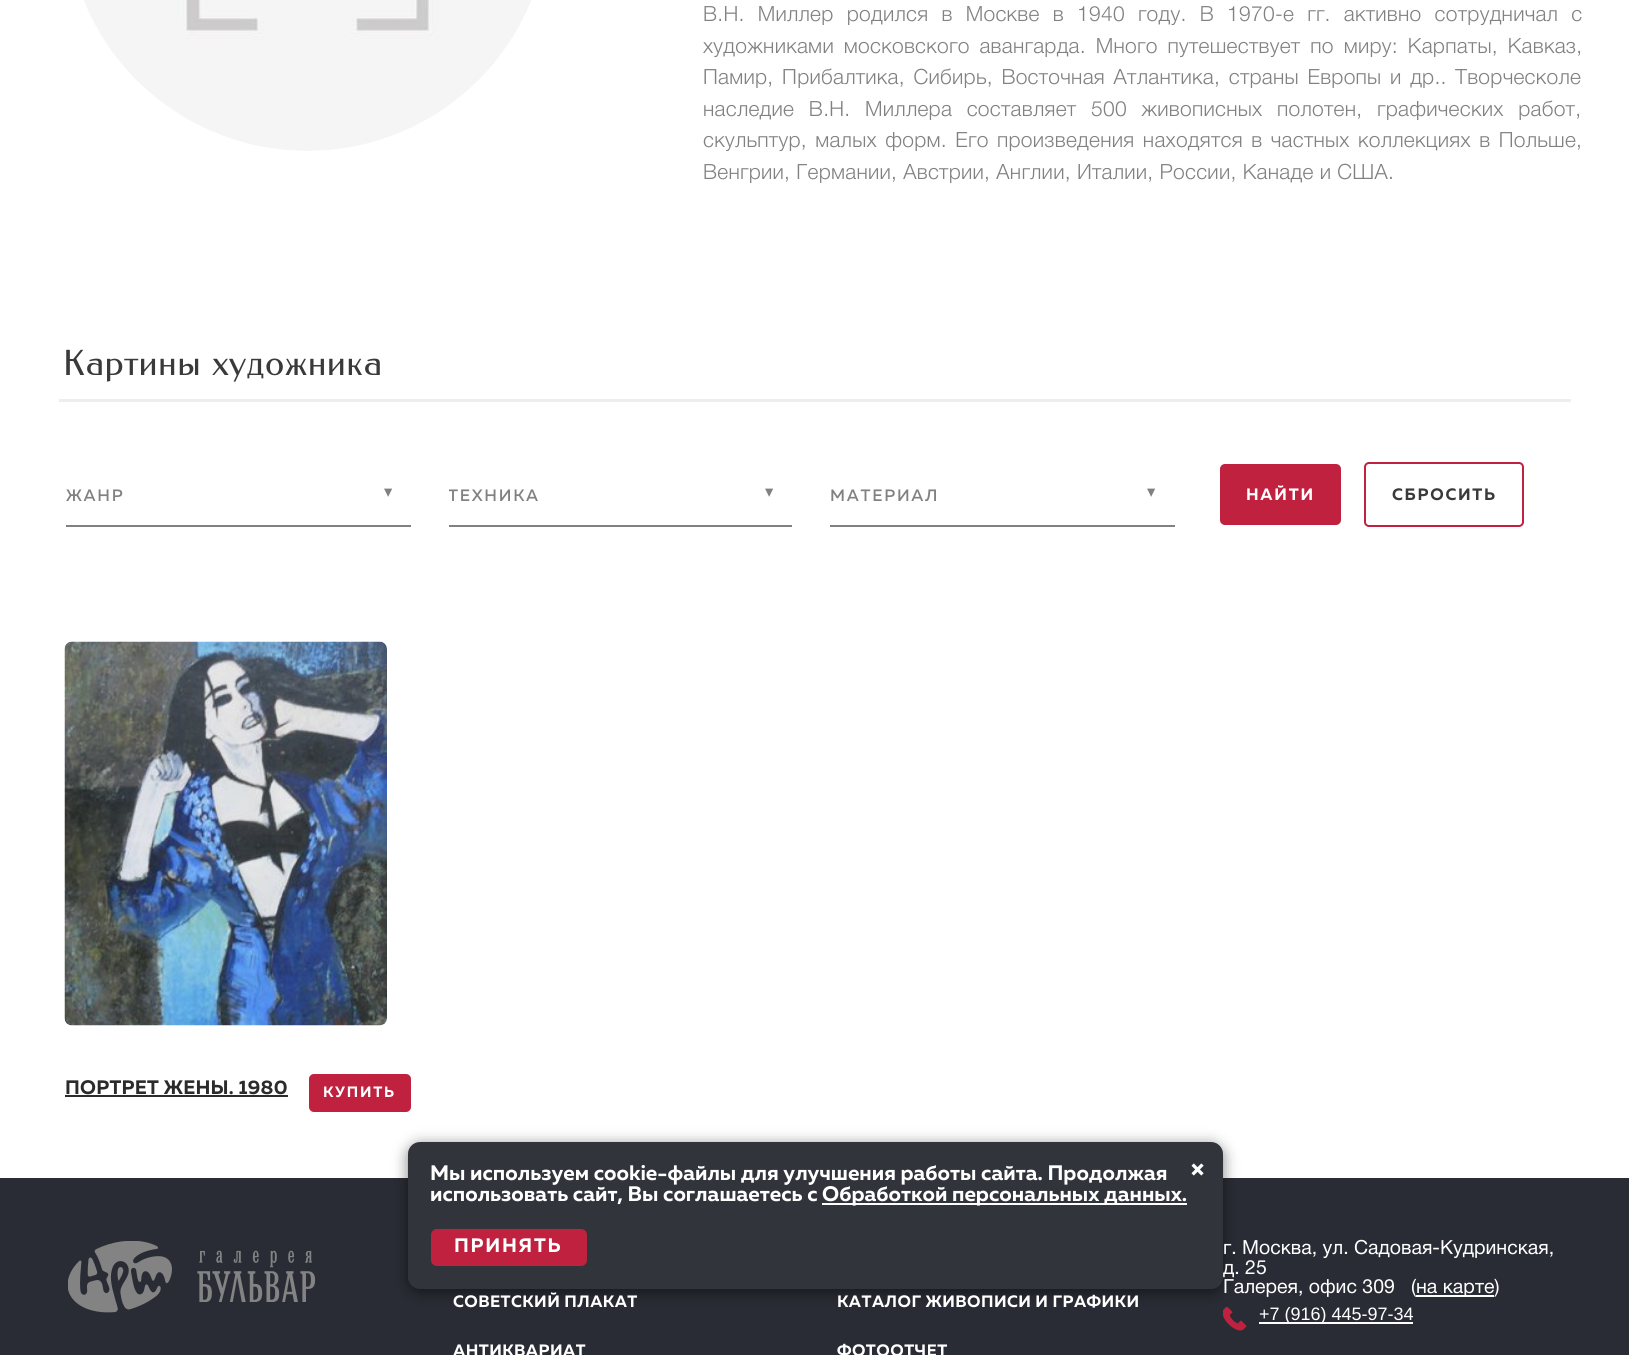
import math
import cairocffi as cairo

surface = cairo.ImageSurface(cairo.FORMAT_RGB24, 1629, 1355)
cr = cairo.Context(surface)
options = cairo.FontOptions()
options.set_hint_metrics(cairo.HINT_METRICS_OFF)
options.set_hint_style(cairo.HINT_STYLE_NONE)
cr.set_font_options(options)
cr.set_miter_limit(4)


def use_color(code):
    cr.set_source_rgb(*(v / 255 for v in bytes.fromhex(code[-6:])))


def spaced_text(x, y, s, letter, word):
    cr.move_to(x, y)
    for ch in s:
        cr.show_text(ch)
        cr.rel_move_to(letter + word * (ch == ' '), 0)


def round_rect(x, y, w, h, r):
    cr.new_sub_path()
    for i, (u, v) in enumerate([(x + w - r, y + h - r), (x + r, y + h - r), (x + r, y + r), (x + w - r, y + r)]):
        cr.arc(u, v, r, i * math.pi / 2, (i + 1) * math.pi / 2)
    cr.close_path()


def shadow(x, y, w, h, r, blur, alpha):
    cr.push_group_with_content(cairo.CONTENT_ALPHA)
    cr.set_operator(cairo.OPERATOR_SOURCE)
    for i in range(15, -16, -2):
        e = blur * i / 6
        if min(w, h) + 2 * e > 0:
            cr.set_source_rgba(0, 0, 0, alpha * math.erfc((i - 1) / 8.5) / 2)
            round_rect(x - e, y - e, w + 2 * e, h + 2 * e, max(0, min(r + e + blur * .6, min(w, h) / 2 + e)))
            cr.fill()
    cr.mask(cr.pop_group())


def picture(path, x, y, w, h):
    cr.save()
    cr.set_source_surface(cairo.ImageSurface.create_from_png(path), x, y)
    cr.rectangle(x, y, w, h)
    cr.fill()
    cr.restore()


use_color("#ffffff")
cr.paint()
picture("img1.png", 84, 0, 447, 151)
cr.select_font_face("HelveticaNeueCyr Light")
cr.set_font_size(21)
use_color("#818181")
spaced_text(703, 21, "В.Н. Миллер родился в Москве в 1940 году. В 1970-е гг. активно сотрудничал с", 0.27, 7)
spaced_text(703, 53, "художниками московского авангарда. Много путешествует по миру: Карпаты, Кавказ,", 0.27, 3.75)
spaced_text(703, 84, "Памир, Прибалтика, Сибирь, Восточная Атлантика, страны Европы и др.. Творческоле", 0.27, 2.5)
spaced_text(703, 116, "наследие В.Н. Миллера составляет 500 живописных полотен, графических работ,", 0.27, 8.5)
spaced_text(703, 147, "скульптур, малых форм. Его произведения находятся в частных коллекциях в Польше,", 0.27, 2.25)
spaced_text(703, 179, "Венгрии, Германии, Австрии, Англии, Италии, России, Канаде и США.", 0.27, 0)
cr.select_font_face("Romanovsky")
cr.set_font_size(36)
use_color("#3a3a3a")
spaced_text(63, 375, "Картины художника", 0.4, 0)
use_color("#eeeeee")
cr.rectangle(59, 399, 1512, 3)
cr.fill()
use_color("#818181")
cr.rectangle(66, 525, 345, 2)
cr.fill()
cr.select_font_face("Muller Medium")
cr.set_font_size(16.5)
spaced_text(66, 501, "ЖАНР", 1.75, 0)
cr.select_font_face("DejaVu Sans")
spaced_text(384, 497, "▾", 1.75, 0)
cr.rectangle(449, 525, 343, 2)
cr.fill()
cr.save()
cr.rectangle(449, 462, 343, 59)
cr.clip()
cr.select_font_face("Muller Medium")
spaced_text(448, 501, "ТЕХНИКА", 1.75, 0)
cr.restore()
spaced_text(765, 497, "▾", 1.75, 0)
cr.rectangle(830, 525, 345, 2)
cr.fill()
cr.select_font_face("Muller Medium")
spaced_text(830, 501, "МАТЕРИАЛ", 1.75, 0)
cr.select_font_face("DejaVu Sans")
spaced_text(1147, 497, "▾", 1.75, 0)
use_color("#c0213f")
round_rect(1220, 464, 121, 61, 5)
cr.fill()
cr.select_font_face("Muller", cairo.FONT_SLANT_NORMAL, cairo.FONT_WEIGHT_BOLD)
use_color("#ffffff")
spaced_text(1246, 500, "НАЙТИ", 1.75, 0)
round_rect(1365, 463, 158, 63, 4)
use_color("#c0213f")
cr.stroke()
use_color("#3a3a3a")
spaced_text(1392, 500, "СБРОСИТЬ", 1.75, 0)
picture("img2.png", 64, 641, 323, 385)
cr.set_font_size(19.5)
use_color("#2b2b2b")
spaced_text(65, 1094, "ПОРТРЕТ ЖЕНЫ. 1980", 0.25, 0)
cr.rectangle(65, 1095, 223, 2)
cr.fill()
use_color("#c0213f")
round_rect(309, 1074, 102, 38, 5)
cr.fill()
cr.set_font_size(15)
use_color("#ffffff")
spaced_text(323, 1097, "КУПИТЬ", 1.75, 0)
use_color("#2a2c35")
cr.rectangle(0, 1178, 1629, 177)
cr.fill()
picture("img4.png", 1223, 1307, 24, 24)
use_color("#000000")
shadow(408, 1145, 815, 147, 12, 7.5, 0.5)
cr.select_font_face("HelveticaNeueCyr")
cr.set_font_size(19.5)
use_color("#ffffff")
cr.move_to(1223, 1274)
cr.show_text("д. 25")
use_color("#32343c")
round_rect(408, 1142, 815, 147, 12)
cr.fill()
cr.select_font_face("Muller", cairo.FONT_SLANT_NORMAL, cairo.FONT_WEIGHT_BOLD)
cr.set_font_size(21)
use_color("#ffffff")
cr.move_to(430, 1180)
cr.show_text("Мы используем cookie-файлы для улучшения работы сайта. Продолжая")
cr.move_to(430, 1201)
cr.show_text("использовать сайт, Вы соглашаетесь с")
cr.rectangle(822, 1203, 365, 2)
cr.fill()
cr.move_to(822, 1201)
cr.show_text("Обработкой персональных данных.")
cr.set_font_size(30)
spaced_text(1190, 1180, "×", 1.75, 0)
use_color("#c0213f")
round_rect(431, 1229, 156, 37, 6)
cr.fill()
cr.set_font_size(19.5)
use_color("#ffffff")
spaced_text(454, 1252, "ПРИНЯТЬ", 1.75, 0)
picture("img3.png", 68, 1241, 248, 72)
cr.select_font_face("HelveticaNeueCyr")
cr.move_to(1223, 1254)
cr.show_text("г. Москва, ул. Садовая-Кудринская,")
cr.move_to(1223, 1293)
cr.show_text("Галерея, офис 309   (")
cr.rectangle(1416, 1295, 78, 2)
cr.fill()
cr.move_to(1416, 1293)
cr.show_text("на карте)")
cr.rectangle(1259, 1322, 154, 2)
cr.fill()
cr.select_font_face("Liberation Sans")
cr.set_font_size(18)
cr.move_to(1259, 1320)
cr.show_text("+7 (916) 445-97-34")
cr.select_font_face("Muller", cairo.FONT_SLANT_NORMAL, cairo.FONT_WEIGHT_BOLD)
cr.set_font_size(16.5)
spaced_text(453, 1307, "СОВЕТСКИЙ ПЛАКАТ", 0.45, 0)
spaced_text(453, 1356, "АНТИКВАРИАТ", 0.45, 0)
spaced_text(837, 1307, "КАТАЛОГ ЖИВОПИСИ И ГРАФИКИ", 0.45, 0)
spaced_text(837, 1356, "ФОТООТЧЕТ", 0.45, 0)
surface.write_to_png("result.png")
